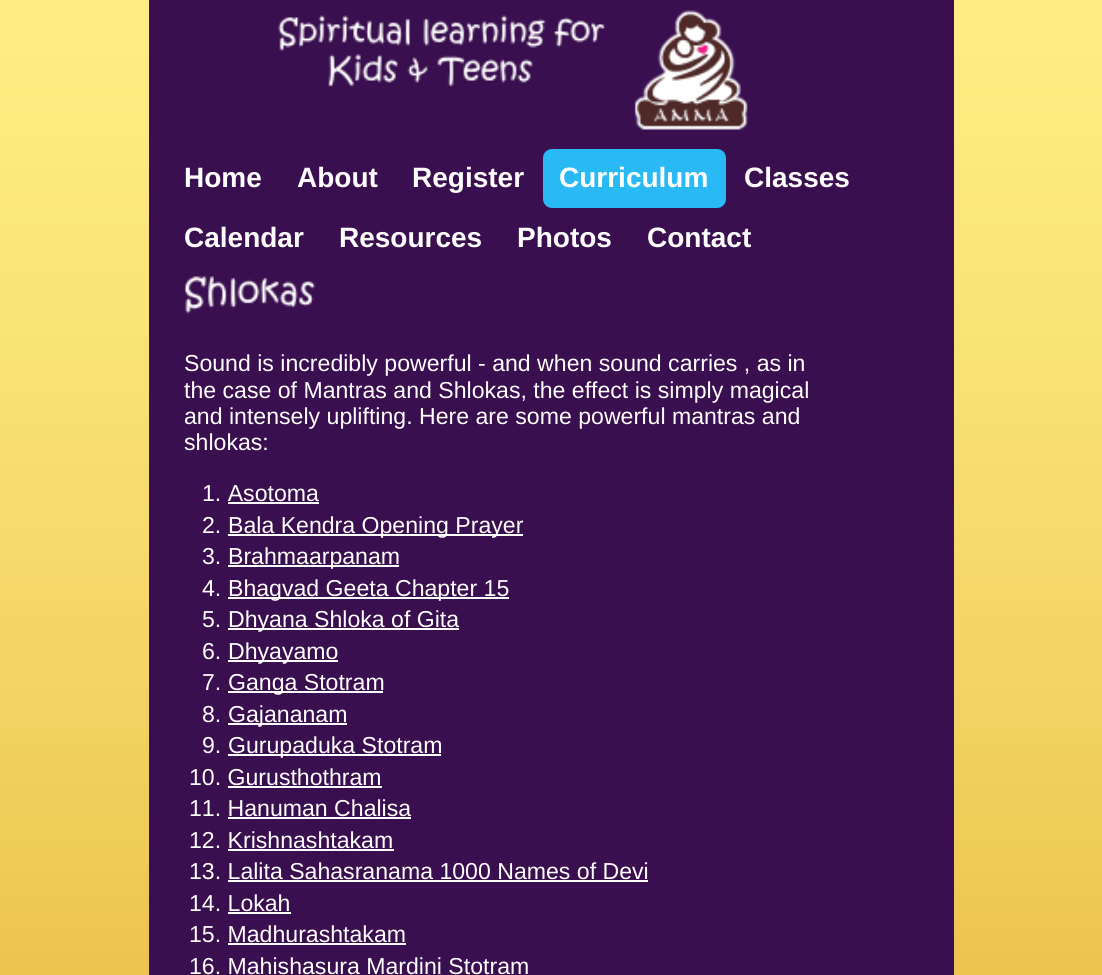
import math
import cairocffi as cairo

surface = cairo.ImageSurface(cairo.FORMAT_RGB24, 1102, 975)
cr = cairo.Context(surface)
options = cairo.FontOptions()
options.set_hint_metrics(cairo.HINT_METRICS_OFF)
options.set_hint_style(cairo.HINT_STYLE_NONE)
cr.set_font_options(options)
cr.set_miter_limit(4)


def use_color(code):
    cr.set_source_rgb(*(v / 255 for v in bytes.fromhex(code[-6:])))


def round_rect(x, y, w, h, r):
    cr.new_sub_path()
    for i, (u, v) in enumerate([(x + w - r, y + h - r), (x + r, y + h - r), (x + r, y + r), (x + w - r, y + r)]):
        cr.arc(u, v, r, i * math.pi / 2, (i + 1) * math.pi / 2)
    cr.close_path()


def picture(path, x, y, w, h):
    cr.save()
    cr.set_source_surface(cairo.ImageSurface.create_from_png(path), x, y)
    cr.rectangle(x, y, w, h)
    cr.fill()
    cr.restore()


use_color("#ffffff")
cr.paint()
picture("img1.png", 0, 0, 1102, 975)
use_color("#3a0f4f")
cr.rectangle(149, 0, 805, 975)
cr.fill()
picture("img2.png", 278, 15, 132, 36)
picture("img3.png", 423, 15, 124, 33)
picture("img4.png", 554, 17, 51, 31)
picture("img5.png", 328, 53, 70, 34)
picture("img6.png", 407, 57, 22, 26)
picture("img7.png", 437, 55, 96, 32)
picture("img8.png", 634, 10, 114, 120)
cr.select_font_face("Liberation Sans", cairo.FONT_SLANT_NORMAL, cairo.FONT_WEIGHT_BOLD)
cr.set_font_size(28)
use_color("#ffffff")
cr.move_to(184, 187)
cr.show_text("Home")
cr.move_to(297, 187)
cr.show_text("About")
cr.move_to(412, 187)
cr.show_text("Register")
use_color("#29baf6")
round_rect(543, 149, 183, 59, 9)
cr.fill()
use_color("#ffffff")
cr.move_to(559, 187)
cr.show_text("Curriculum")
cr.move_to(744, 187)
cr.show_text("Classes")
cr.move_to(184, 247)
cr.show_text("Calendar")
cr.move_to(339, 247)
cr.show_text("Resources")
cr.move_to(517, 247)
cr.show_text("Photos")
cr.move_to(647, 247)
cr.show_text("Contact")
picture("img9.png", 184, 276, 132, 38)
cr.select_font_face("Liberation Sans")
cr.set_font_size(23.1)
cr.move_to(184, 371)
cr.show_text("Sound is incredibly powerful - and when sound carries , as in")
cr.move_to(184, 398)
cr.show_text("the case of Mantras and Shlokas, the effect is simply magical")
cr.move_to(184, 424)
cr.show_text("and intensely uplifting. Here are some powerful mantras and")
cr.move_to(184, 450)
cr.show_text("shlokas:")
cr.move_to(202, 501)
cr.show_text("1. Asotoma")
cr.rectangle(228, 502, 91, 2)
cr.fill()
cr.move_to(202, 533)
cr.show_text("2.")
cr.rectangle(228, 534, 295, 2)
cr.fill()
cr.move_to(228, 533)
cr.show_text("Bala Kendra Opening Prayer")
cr.move_to(202, 564)
cr.show_text("3.")
cr.rectangle(228, 565, 171, 2)
cr.fill()
cr.move_to(228, 564)
cr.show_text("Brahmaarpanam")
cr.move_to(202, 596)
cr.show_text("4.")
cr.rectangle(228, 597, 281, 2)
cr.fill()
cr.move_to(228, 596)
cr.show_text("Bhagvad Geeta Chapter 15")
cr.move_to(202, 627)
cr.show_text("5.")
cr.rectangle(228, 628, 231, 2)
cr.fill()
cr.move_to(228, 627)
cr.show_text("Dhyana Shloka of Gita")
cr.move_to(202, 659)
cr.show_text("6.")
cr.rectangle(228, 660, 110, 2)
cr.fill()
cr.move_to(228, 659)
cr.show_text("Dhyayamo")
cr.move_to(202, 690)
cr.show_text("7.")
cr.rectangle(228, 691, 155, 2)
cr.fill()
cr.move_to(228, 690)
cr.show_text("Ganga Stotram")
cr.move_to(202, 722)
cr.show_text("8.")
cr.rectangle(228, 723, 119, 2)
cr.fill()
cr.move_to(228, 722)
cr.show_text("Gajananam")
cr.move_to(202, 753)
cr.show_text("9.")
cr.rectangle(228, 754, 213, 2)
cr.fill()
cr.move_to(228, 753)
cr.show_text("Gurupaduka Stotram")
cr.move_to(189, 785)
cr.show_text("10. Gurusthothram")
cr.rectangle(228, 786, 154, 2)
cr.fill()
cr.move_to(189, 816)
cr.show_text("11. Hanuman Chalisa")
cr.rectangle(228, 817, 183, 2)
cr.fill()
cr.move_to(189, 848)
cr.show_text("12. Krishnashtakam")
cr.rectangle(228, 849, 166, 2)
cr.fill()
cr.move_to(189, 879)
cr.show_text("13. Lalita Sahasranama 1000 Names of Devi")
cr.rectangle(228, 880, 420, 2)
cr.fill()
cr.move_to(189, 911)
cr.show_text("14. Lokah")
cr.rectangle(228, 912, 63, 2)
cr.fill()
cr.move_to(189, 942)
cr.show_text("15. Madhurashtakam")
cr.rectangle(228, 943, 178, 2)
cr.fill()
cr.move_to(189, 974)
cr.show_text("16. Mahishasura Mardini Stotram")
surface.write_to_png("result.png")
